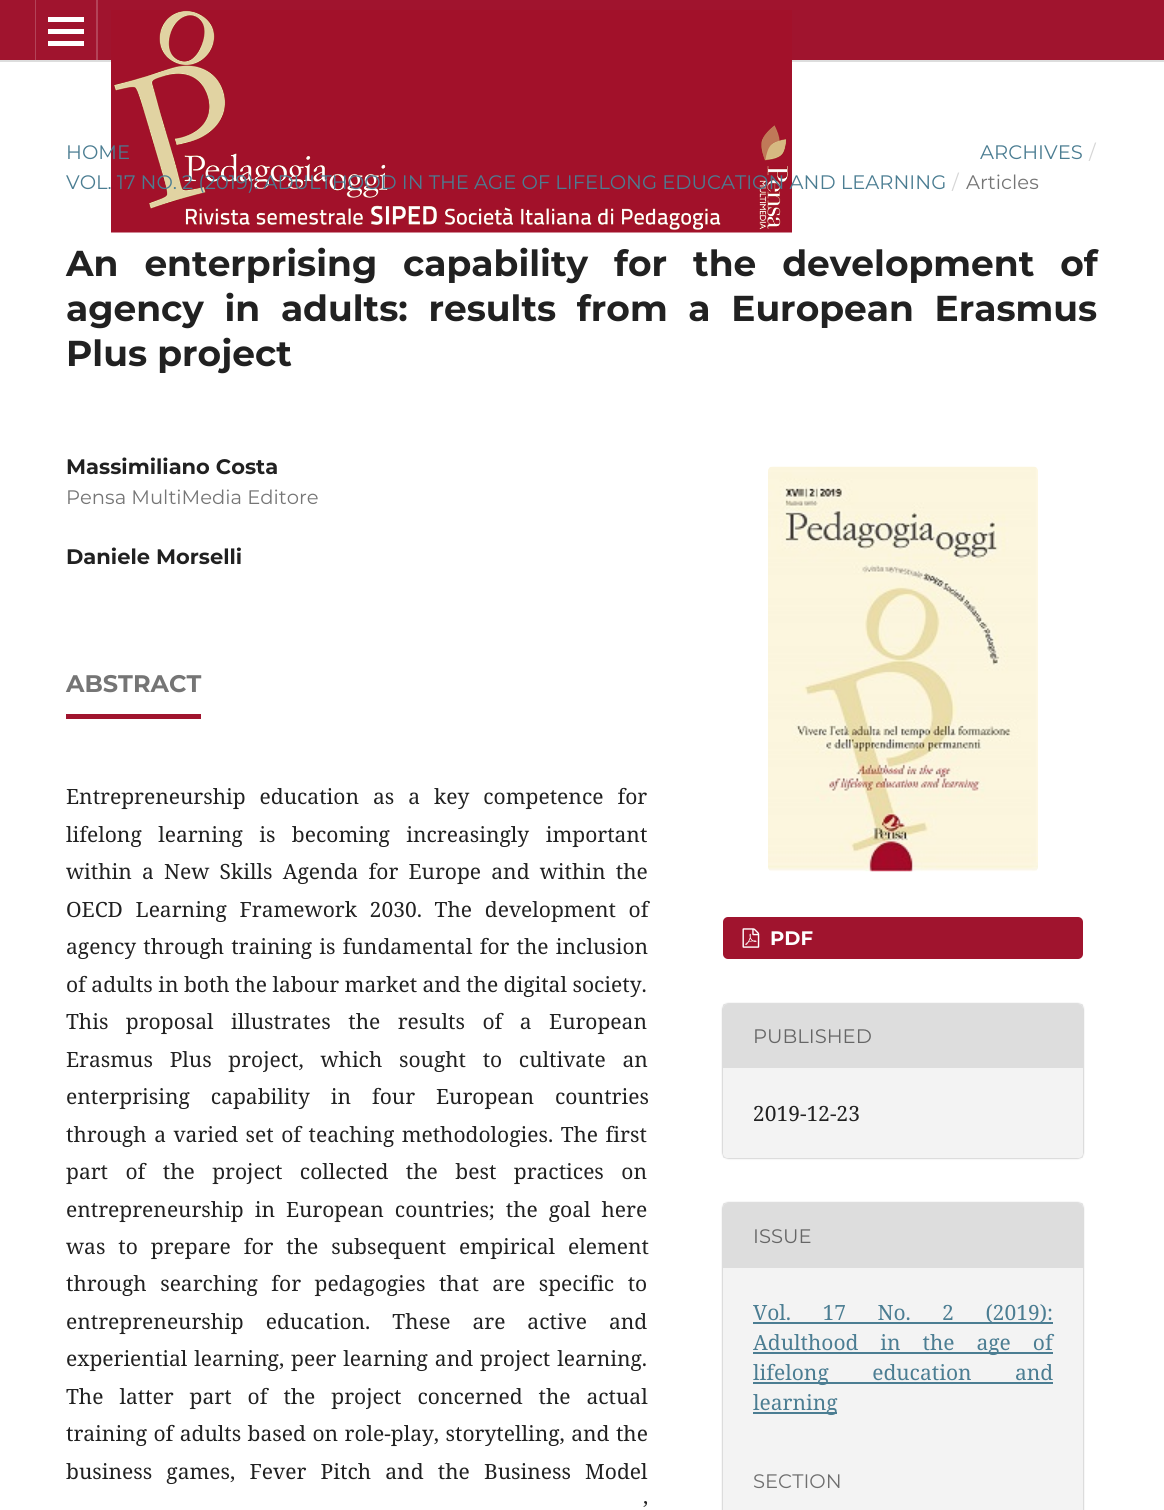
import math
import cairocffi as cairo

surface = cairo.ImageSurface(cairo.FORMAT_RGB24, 1164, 1510)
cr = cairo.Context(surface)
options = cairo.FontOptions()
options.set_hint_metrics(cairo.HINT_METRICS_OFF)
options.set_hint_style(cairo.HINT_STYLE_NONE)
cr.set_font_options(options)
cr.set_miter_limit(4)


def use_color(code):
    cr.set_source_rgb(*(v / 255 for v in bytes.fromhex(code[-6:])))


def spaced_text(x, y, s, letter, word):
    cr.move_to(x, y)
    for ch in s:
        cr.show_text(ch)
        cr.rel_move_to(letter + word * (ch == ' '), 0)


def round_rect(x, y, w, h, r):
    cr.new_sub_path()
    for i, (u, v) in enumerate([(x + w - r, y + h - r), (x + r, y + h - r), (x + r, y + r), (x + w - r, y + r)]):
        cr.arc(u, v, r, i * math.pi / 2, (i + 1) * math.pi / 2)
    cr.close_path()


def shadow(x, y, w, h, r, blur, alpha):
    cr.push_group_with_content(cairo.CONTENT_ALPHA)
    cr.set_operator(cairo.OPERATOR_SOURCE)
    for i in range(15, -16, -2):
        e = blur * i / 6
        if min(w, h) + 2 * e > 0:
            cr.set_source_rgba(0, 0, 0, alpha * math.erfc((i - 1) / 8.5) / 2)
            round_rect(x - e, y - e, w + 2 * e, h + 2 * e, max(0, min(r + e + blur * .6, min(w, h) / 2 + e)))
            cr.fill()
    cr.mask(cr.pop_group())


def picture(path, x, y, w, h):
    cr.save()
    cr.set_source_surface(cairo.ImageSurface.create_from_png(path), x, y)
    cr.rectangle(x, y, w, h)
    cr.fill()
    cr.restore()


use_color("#ffffff")
cr.paint()
use_color("#a0142e")
cr.rectangle(0, 0, 1164, 60)
cr.fill()
use_color("#dddddd")
cr.rectangle(0, 60, 1164, 2)
cr.fill()
use_color("#b34358")
cr.rectangle(35, 0, 1, 60)
cr.fill()
cr.rectangle(96, 0, 2, 60)
cr.fill()
use_color("#ffffff")
cr.rectangle(48, 41, 36, 5)
cr.fill()
cr.rectangle(48, 17, 36, 5)
cr.fill()
cr.rectangle(48, 29, 36, 5)
cr.fill()
picture("img1.png", 111, 10, 681, 223)
cr.select_font_face("Montserrat")
cr.set_font_size(19.55)
use_color("#4b7d92")
cr.move_to(66, 159)
cr.show_text("HOME")
cr.move_to(980, 159)
cr.show_text("ARCHIVES")
use_color("#d6d6d6")
cr.move_to(1089, 159)
cr.show_text("/")
use_color("#4b7d92")
cr.move_to(66, 189)
cr.show_text("VOL. 17 NO. 2 (2019): ADULTHOOD IN THE AGE OF LIFELONG EDUCATION AND LEARNING")
use_color("#d6d6d6")
cr.move_to(952, 189)
cr.show_text("/")
use_color("#757575")
cr.move_to(966, 189)
cr.show_text("Articles")
cr.select_font_face("Montserrat", cairo.FONT_SLANT_NORMAL, cairo.FONT_WEIGHT_BOLD)
cr.set_font_size(36)
use_color("#212121")
spaced_text(66, 276, "An enterprising capability for the development of", 0, 15.75)
spaced_text(66, 321, "agency in adults: results from a European Erasmus", 0, 10.5)
cr.move_to(66, 366)
cr.show_text("Plus project")
cr.set_font_size(21)
cr.move_to(66, 474)
cr.show_text("Massimiliano Costa")
cr.select_font_face("Montserrat")
cr.set_font_size(19.55)
use_color("#757575")
cr.move_to(66, 504)
cr.show_text("Pensa MultiMedia Editore")
cr.select_font_face("Montserrat", cairo.FONT_SLANT_NORMAL, cairo.FONT_WEIGHT_BOLD)
cr.set_font_size(21)
use_color("#212121")
cr.move_to(66, 564)
cr.show_text("Daniele Morselli")
use_color("#a0142e")
cr.rectangle(66, 714, 135, 5)
cr.fill()
cr.set_font_size(24)
use_color("#757575")
cr.move_to(66, 692)
cr.show_text("ABSTRACT")
cr.select_font_face("Noto Serif")
cr.set_font_size(21)
use_color("#212121")
spaced_text(66, 804, "Entrepreneurship education as a key competence for", 0, 8.5)
spaced_text(66, 842, "lifelong learning is becoming increasingly important", 0, 11)
spaced_text(66, 879, "within a New Skills Agenda for Europe and within the", 0, 4.75)
spaced_text(66, 917, "OECD Learning Framework 2030. The development of", 0, 7.25)
spaced_text(66, 954, "agency through training is fundamental for the inclusion", 0, 1.75)
cr.move_to(66, 992)
cr.show_text("of adults in both the labour market and the digital society.")
spaced_text(66, 1029, "This proposal illustrates the results of a European", 0, 12)
spaced_text(66, 1067, "Erasmus Plus project, which sought to cultivate an", 0, 11.25)
spaced_text(66, 1104, "enterprising capability in four European countries", 0, 15.5)
spaced_text(66, 1142, "through a varied set of teaching methodologies. The first", 0, 2)
spaced_text(66, 1179, "part of the project collected the best practices on", 0, 12)
spaced_text(66, 1217, "entrepreneurship in European countries; the goal here", 0, 5.5)
spaced_text(66, 1254, "was to prepare for the subsequent empirical element", 0, 7.5)
spaced_text(66, 1291, "through searching for pedagogies that are specific to", 0, 8)
spaced_text(66, 1329, "entrepreneurship education. These are active and", 0, 16.5)
spaced_text(66, 1366, "experiential learning, peer learning and project learning.", 0, 1.5)
spaced_text(66, 1404, "The latter part of the project concerned the actual", 0, 10.5)
spaced_text(66, 1441, "training of adults based on role-play, storytelling, and the", 0, 1)
spaced_text(66, 1479, "business games, Fever Pitch and the Business Model", 0, 8.75)
spaced_text(643, 1516, "’", 0, 5)
picture("img2.png", 768, 466, 270, 406)
use_color("#a0142e")
round_rect(723, 917, 360, 42, 5)
cr.fill()
picture("img3.png", 742, 928, 18, 20)
cr.select_font_face("Montserrat", cairo.FONT_SLANT_NORMAL, cairo.FONT_WEIGHT_BOLD)
cr.set_font_size(19.55)
use_color("#ffffff")
cr.move_to(770, 945)
cr.show_text("PDF")
cr.save()
cr.set_fill_rule(cairo.FILL_RULE_EVEN_ODD)
cr.new_path()
cr.move_to(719, 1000)
cr.line_to(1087, 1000)
cr.line_to(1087, 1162)
cr.line_to(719, 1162)
cr.close_path()
cr.move_to(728, 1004)
cr.line_to(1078, 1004)
cr.curve_to(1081, 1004, 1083, 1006, 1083, 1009)
cr.line_to(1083, 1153)
cr.curve_to(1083, 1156, 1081, 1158, 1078, 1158)
cr.line_to(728, 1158)
cr.curve_to(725, 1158, 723, 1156, 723, 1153)
cr.line_to(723, 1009)
cr.curve_to(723, 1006, 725, 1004, 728, 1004)
cr.close_path()
cr.clip()
use_color("#000000")
shadow(723, 1004, 360, 154, 5, 1, 0.4)
cr.restore()
cr.set_source_rgba(0, 0, 0, 0.05)
cr.rectangle(723, 1004, 360, 154)
cr.fill()
use_color("#dddddd")
cr.new_path()
cr.move_to(728, 1004)
cr.line_to(1078, 1004)
cr.curve_to(1081, 1004, 1083, 1006, 1083, 1009)
cr.line_to(1083, 1068)
cr.line_to(723, 1068)
cr.line_to(723, 1009)
cr.curve_to(723, 1006, 725, 1004, 728, 1004)
cr.close_path()
cr.fill()
cr.select_font_face("Montserrat")
use_color("#666666")
cr.move_to(753, 1043)
cr.show_text("PUBLISHED")
cr.select_font_face("Noto Serif")
cr.set_font_size(21)
use_color("#212121")
cr.move_to(753, 1121)
cr.show_text("2019-12-23")
cr.save()
cr.set_fill_rule(cairo.FILL_RULE_EVEN_ODD)
cr.new_path()
cr.move_to(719, 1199)
cr.line_to(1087, 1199)
cr.line_to(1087, 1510)
cr.line_to(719, 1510)
cr.close_path()
cr.move_to(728, 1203)
cr.line_to(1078, 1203)
cr.curve_to(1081, 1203, 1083, 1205, 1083, 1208)
cr.line_to(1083, 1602)
cr.curve_to(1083, 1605, 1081, 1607, 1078, 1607)
cr.line_to(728, 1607)
cr.curve_to(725, 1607, 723, 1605, 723, 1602)
cr.line_to(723, 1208)
cr.curve_to(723, 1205, 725, 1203, 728, 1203)
cr.close_path()
cr.clip()
use_color("#000000")
shadow(723, 1203, 360, 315, 5, 1, 0.4)
cr.restore()
cr.set_source_rgba(0, 0, 0, 0.05)
cr.rectangle(723, 1203, 360, 307)
cr.fill()
use_color("#dddddd")
cr.new_path()
cr.move_to(728, 1203)
cr.line_to(1078, 1203)
cr.curve_to(1081, 1203, 1083, 1205, 1083, 1208)
cr.line_to(1083, 1268)
cr.line_to(723, 1268)
cr.line_to(723, 1208)
cr.curve_to(723, 1205, 725, 1203, 728, 1203)
cr.close_path()
cr.fill()
cr.select_font_face("Montserrat")
cr.set_font_size(19.55)
use_color("#666666")
cr.move_to(753, 1243)
cr.show_text("ISSUE")
use_color("#4b7d92")
cr.rectangle(753, 1322, 300, 2)
cr.fill()
cr.select_font_face("Noto Serif")
cr.set_font_size(21)
spaced_text(753, 1320, "Vol. 17 No. 2 (2019):", 0, 26)
cr.rectangle(753, 1352, 300, 2)
cr.fill()
spaced_text(753, 1350, "Adulthood in the age of", 0, 16.5)
cr.rectangle(753, 1382, 300, 2)
cr.fill()
spaced_text(753, 1380, "lifelong education and", 0, 38)
cr.rectangle(753, 1412, 84, 2)
cr.fill()
cr.move_to(753, 1410)
cr.show_text("learning")
cr.select_font_face("Montserrat")
cr.set_font_size(19.55)
use_color("#6f6f6f")
cr.move_to(753, 1488)
cr.show_text("SECTION")
surface.write_to_png("result.png")
